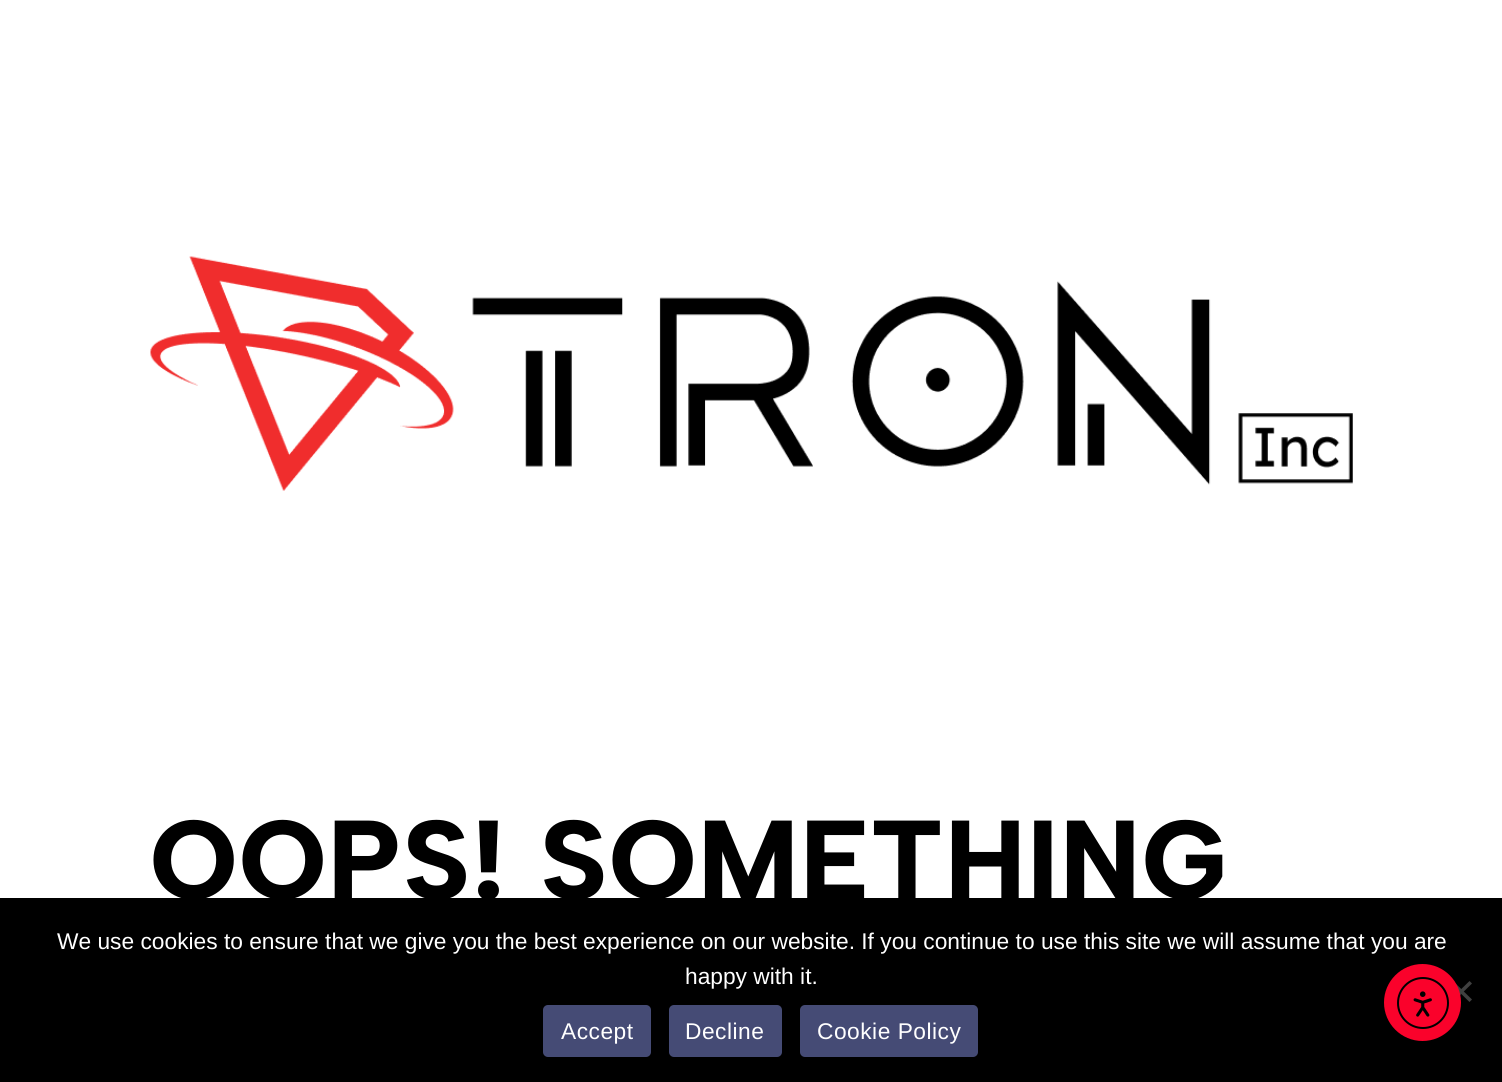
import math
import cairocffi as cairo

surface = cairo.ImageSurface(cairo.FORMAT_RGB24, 1502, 1082)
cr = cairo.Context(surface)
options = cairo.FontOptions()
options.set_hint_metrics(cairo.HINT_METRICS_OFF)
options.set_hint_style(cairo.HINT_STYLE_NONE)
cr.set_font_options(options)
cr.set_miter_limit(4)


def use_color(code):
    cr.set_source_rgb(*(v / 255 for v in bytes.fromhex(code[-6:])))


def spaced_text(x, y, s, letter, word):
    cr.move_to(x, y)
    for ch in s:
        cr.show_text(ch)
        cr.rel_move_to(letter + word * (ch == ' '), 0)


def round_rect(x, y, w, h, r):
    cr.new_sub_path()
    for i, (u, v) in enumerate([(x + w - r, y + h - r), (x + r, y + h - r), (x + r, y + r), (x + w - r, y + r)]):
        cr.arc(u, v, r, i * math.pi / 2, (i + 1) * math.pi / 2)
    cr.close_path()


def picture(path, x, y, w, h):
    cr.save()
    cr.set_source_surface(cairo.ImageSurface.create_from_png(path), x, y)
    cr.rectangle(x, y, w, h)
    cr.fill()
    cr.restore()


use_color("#ffffff")
cr.paint()
picture("img1.png", 150, 256, 1203, 235)
cr.select_font_face("Albert Sans ExtraBold")
cr.set_font_size(112)
use_color("#000000")
spaced_text(150, 899, "OOPS! SOMETHING", 1.75, 0)
cr.rectangle(0, 898, 1502, 184)
cr.fill()
cr.select_font_face("Liberation Sans")
cr.set_font_size(22.75)
use_color("#ffffff")
cr.move_to(57, 949)
cr.show_text("We use cookies to ensure that we give you the best experience on our website. If you continue to use this site we will assume that you are")
cr.move_to(685, 984)
cr.show_text("happy with it.")
use_color("#404040")
cr.new_path()
cr.move_to(1469.5, 981)
cr.line_to(1472, 983.5)
cr.line_to(1453, 1002)
cr.line_to(1450.5, 999.5)
cr.close_path()
cr.fill()
cr.new_path()
cr.move_to(1450.5, 983.5)
cr.line_to(1453, 981)
cr.line_to(1472, 999.5)
cr.line_to(1469.5, 1002)
cr.close_path()
cr.fill()
use_color("#454b75")
round_rect(543, 1005, 108, 52, 5)
cr.fill()
use_color("#ffffff")
spaced_text(561, 1039, "Accept", 0.5, 0)
use_color("#454b75")
round_rect(669, 1005, 113, 52, 5)
cr.fill()
use_color("#ffffff")
spaced_text(685, 1039, "Decline", 0.5, 0)
use_color("#454b75")
round_rect(800, 1005, 178, 52, 5)
cr.fill()
use_color("#ffffff")
spaced_text(817, 1039, "Cookie Policy", 0.5, 0)
use_color("#fa022b")
cr.new_path()
cr.arc(1422.5, 1002.5, 38.5, 0, 2 * math.pi)
cr.fill()
cr.arc(1423, 1003, 25, 0, 2 * math.pi)
use_color("#000000")
cr.stroke()
picture("img2.png", 1413, 991, 19, 26)
surface.write_to_png("result.png")
